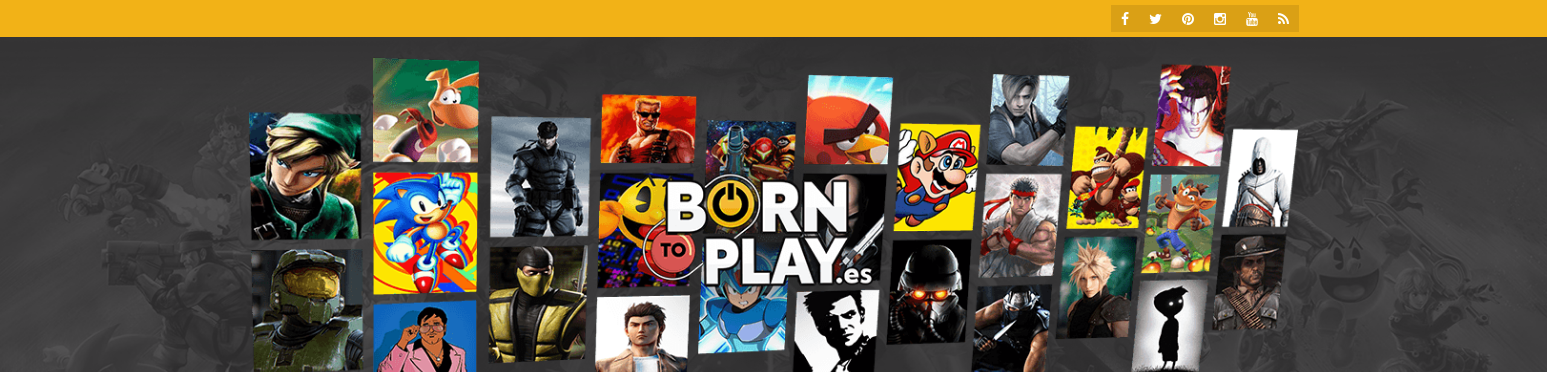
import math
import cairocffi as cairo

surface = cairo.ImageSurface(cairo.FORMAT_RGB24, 1547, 372)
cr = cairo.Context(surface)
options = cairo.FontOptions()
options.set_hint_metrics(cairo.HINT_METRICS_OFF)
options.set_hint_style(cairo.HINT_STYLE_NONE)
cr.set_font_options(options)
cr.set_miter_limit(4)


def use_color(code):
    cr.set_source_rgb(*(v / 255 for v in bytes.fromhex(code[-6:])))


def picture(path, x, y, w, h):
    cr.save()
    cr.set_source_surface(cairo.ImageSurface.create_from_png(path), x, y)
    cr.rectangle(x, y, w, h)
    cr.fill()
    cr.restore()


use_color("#343334")
cr.paint()
picture("img1.png", 0, 37, 1547, 335)
use_color("#f2b217")
cr.rectangle(0, 0, 1547, 37)
cr.fill()
use_color("#daa015")
cr.rectangle(1111, 5, 188, 27)
cr.fill()
picture("img2.png", 1121, 12, 8, 13)
picture("img3.png", 1149, 14, 13, 10)
picture("img4.png", 1182, 13, 12, 12)
picture("img5.png", 1214, 13, 12, 12)
picture("img6.png", 1246, 12, 12, 14)
picture("img7.png", 1278, 13, 11, 11)
picture("img8.png", 249, 57, 1049, 315)
surface.write_to_png("result.png")
